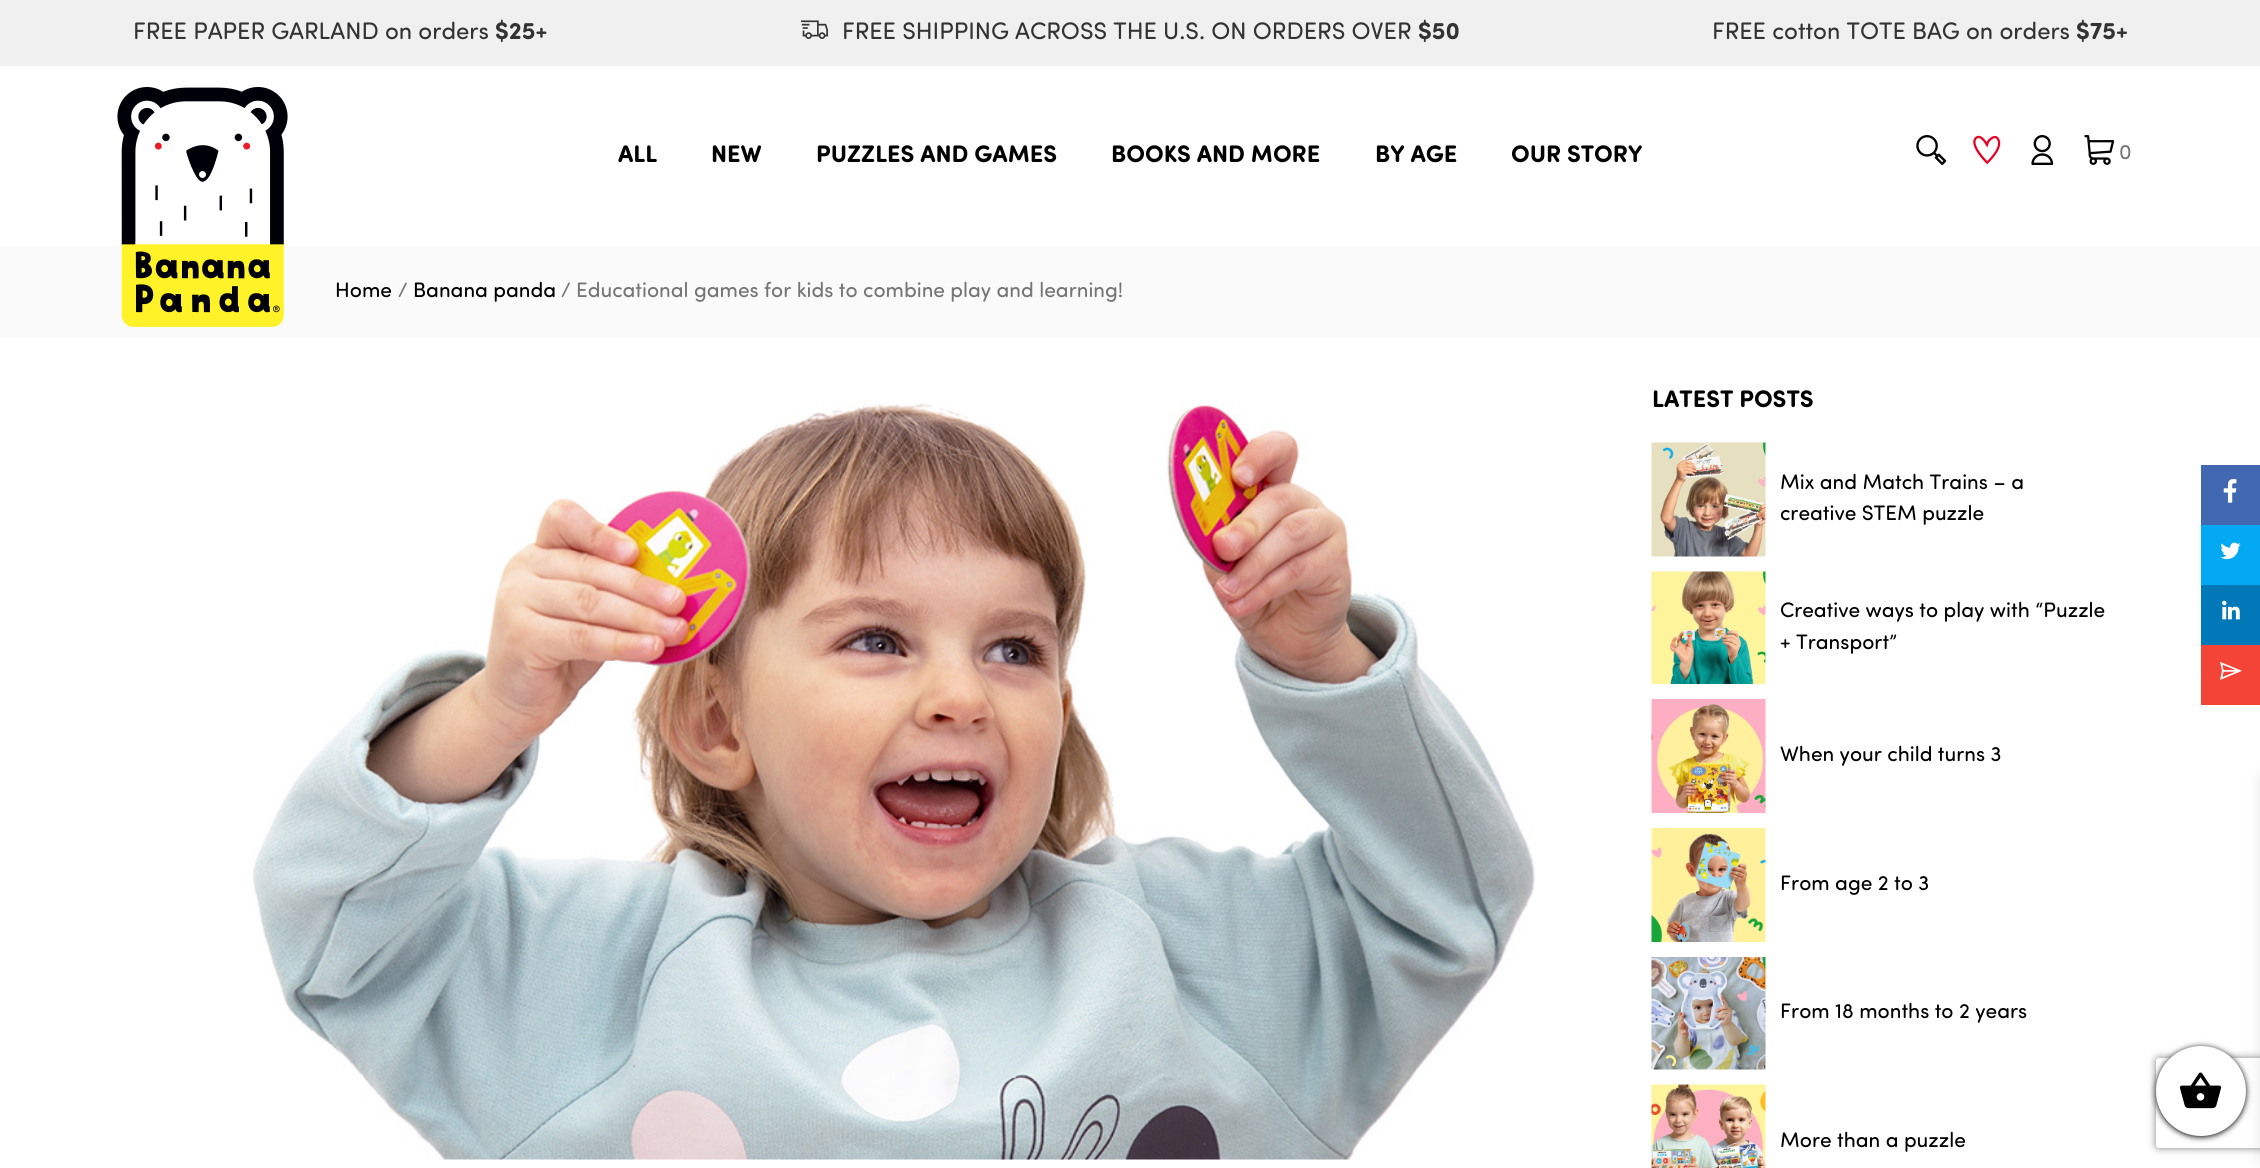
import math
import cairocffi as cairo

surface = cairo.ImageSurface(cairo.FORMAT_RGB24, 2260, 1168)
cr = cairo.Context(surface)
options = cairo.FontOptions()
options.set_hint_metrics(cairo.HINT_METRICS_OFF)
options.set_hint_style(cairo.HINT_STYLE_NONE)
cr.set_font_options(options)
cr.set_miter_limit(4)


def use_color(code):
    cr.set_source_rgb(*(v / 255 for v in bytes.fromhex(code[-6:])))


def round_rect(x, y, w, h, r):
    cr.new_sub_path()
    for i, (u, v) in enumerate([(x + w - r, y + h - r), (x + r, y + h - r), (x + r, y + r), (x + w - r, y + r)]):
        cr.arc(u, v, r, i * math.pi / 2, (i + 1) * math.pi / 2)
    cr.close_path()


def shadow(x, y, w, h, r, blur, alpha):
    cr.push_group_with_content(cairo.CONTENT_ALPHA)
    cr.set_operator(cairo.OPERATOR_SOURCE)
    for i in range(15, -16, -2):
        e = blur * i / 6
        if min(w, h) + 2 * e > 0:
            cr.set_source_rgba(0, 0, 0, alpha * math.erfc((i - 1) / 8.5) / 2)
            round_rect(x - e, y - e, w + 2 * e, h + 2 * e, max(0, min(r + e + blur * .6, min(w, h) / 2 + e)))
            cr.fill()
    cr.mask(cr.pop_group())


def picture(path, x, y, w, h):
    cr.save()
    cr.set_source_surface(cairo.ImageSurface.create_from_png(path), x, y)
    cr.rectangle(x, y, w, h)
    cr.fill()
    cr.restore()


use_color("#ffffff")
cr.paint()
use_color("#f0f0f0")
cr.rectangle(0, 0, 2260, 66)
cr.fill()
cr.select_font_face("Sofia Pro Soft")
cr.set_font_size(24)
use_color("#333333")
cr.move_to(133, 39)
cr.show_text("FREE PAPER GARLAND on orders")
cr.select_font_face("Sofia Pro Soft", cairo.FONT_SLANT_NORMAL, cairo.FONT_WEIGHT_BOLD)
cr.move_to(495, 39)
cr.show_text("$25+")
picture("img1.png", 801, 20, 27, 19)
cr.select_font_face("Sofia Pro Soft")
cr.move_to(842, 39)
cr.show_text("FREE SHIPPING ACROSS THE U.S. ON ORDERS OVER")
cr.select_font_face("Sofia Pro Soft", cairo.FONT_SLANT_NORMAL, cairo.FONT_WEIGHT_BOLD)
cr.move_to(1418, 39)
cr.show_text("$50")
cr.select_font_face("Sofia Pro Soft")
cr.move_to(1712, 39)
cr.show_text("FREE cotton TOTE BAG on orders")
cr.select_font_face("Sofia Pro Soft", cairo.FONT_SLANT_NORMAL, cairo.FONT_WEIGHT_BOLD)
cr.move_to(2076, 39)
cr.show_text("$75+")
use_color("#fafafa")
cr.rectangle(0, 246, 2260, 92)
cr.fill()
picture("img2.png", 117, 87, 171, 240)
use_color("#000000")
cr.move_to(618, 162)
cr.show_text("ALL")
cr.move_to(711, 162)
cr.show_text("NEW")
cr.move_to(816, 162)
cr.show_text("PUZZLES AND GAMES")
cr.move_to(1111, 162)
cr.show_text("BOOKS AND MORE")
cr.move_to(1375, 162)
cr.show_text("BY AGE")
cr.move_to(1511, 162)
cr.show_text("OUR STORY")
picture("img3.png", 1916, 135, 31, 30)
picture("img4.png", 1973, 135, 28, 30)
picture("img5.png", 2031, 135, 23, 30)
picture("img6.png", 2084, 135, 31, 30)
cr.select_font_face("Sofia Pro Soft")
cr.set_font_size(21)
use_color("#757575")
cr.move_to(2119, 159)
cr.show_text("0")
use_color("#000000")
cr.move_to(335, 297)
cr.show_text("Home")
use_color("#757575")
cr.move_to(398, 297)
cr.show_text("/")
use_color("#000000")
cr.move_to(413, 297)
cr.show_text("Banana panda")
use_color("#757575")
cr.move_to(561, 297)
cr.show_text("/ Educational games for kids to combine play and learning!")
cr.select_font_face("Sofia Pro Soft", cairo.FONT_SLANT_NORMAL, cairo.FONT_WEIGHT_BOLD)
cr.set_font_size(24)
use_color("#000000")
cr.move_to(1652, 407)
cr.show_text("LATEST POSTS")
picture("img7.png", 1651, 442, 115, 115)
cr.select_font_face("Sofia Pro Soft")
cr.set_font_size(21)
cr.move_to(1780, 489)
cr.show_text("Mix and Match Trains – a")
cr.move_to(1780, 520)
cr.show_text("creative STEM puzzle")
picture("img8.png", 1651, 571, 115, 113)
cr.move_to(1780, 617)
cr.show_text("Creative ways to play with “Puzzle")
cr.move_to(1780, 649)
cr.show_text("+ Transport”")
picture("img9.png", 1651, 699, 115, 114)
cr.move_to(1780, 761)
cr.show_text("When your child turns 3")
picture("img10.png", 1651, 828, 115, 114)
cr.move_to(1780, 890)
cr.show_text("From age 2 to 3")
picture("img11.png", 1651, 957, 115, 113)
cr.move_to(1780, 1018)
cr.show_text("From 18 months to 2 years")
picture("img12.png", 1651, 1084, 115, 84)
cr.move_to(1780, 1147)
cr.show_text("More than a puzzle")
picture("img13.png", 252, 403, 1284, 757)
use_color("#4368b2")
cr.rectangle(2201, 465, 59, 60)
cr.fill()
picture("img14.png", 2223, 479, 14, 24)
use_color("#04a9f4")
cr.rectangle(2201, 525, 59, 60)
cr.fill()
picture("img15.png", 2220, 542, 21, 18)
use_color("#0178b7")
cr.rectangle(2201, 585, 59, 60)
cr.fill()
picture("img16.png", 2222, 600, 18, 20)
use_color("#f44437")
cr.rectangle(2201, 645, 59, 60)
cr.fill()
picture("img17.png", 2220, 662, 22, 18)
use_color("#000000")
shadow(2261, 777, 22, 384, 0, 7.5, 0.1)
shadow(2156, 1047, 90, 90, 45, 3, 1)
cr.save()
cr.set_fill_rule(cairo.FILL_RULE_EVEN_ODD)
cr.new_path()
cr.move_to(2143, 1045)
cr.line_to(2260, 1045)
cr.line_to(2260, 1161)
cr.line_to(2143, 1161)
cr.close_path()
cr.move_to(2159, 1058)
cr.line_to(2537, 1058)
cr.curve_to(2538.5, 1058, 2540, 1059.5, 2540, 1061)
cr.line_to(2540, 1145)
cr.curve_to(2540, 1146.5, 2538.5, 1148, 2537, 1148)
cr.line_to(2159, 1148)
cr.curve_to(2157.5, 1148, 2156, 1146.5, 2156, 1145)
cr.line_to(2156, 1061)
cr.curve_to(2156, 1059.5, 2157.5, 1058, 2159, 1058)
cr.close_path()
cr.clip()
use_color("#808080")
shadow(2156, 1058, 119, 90, 3, 4, 1)
cr.restore()
use_color("#ffffff")
cr.arc(2201, 1091, 45, 0, 2 * math.pi)
cr.fill()
picture("img18.png", 2179, 1072, 43, 37)
surface.write_to_png("result.png")
